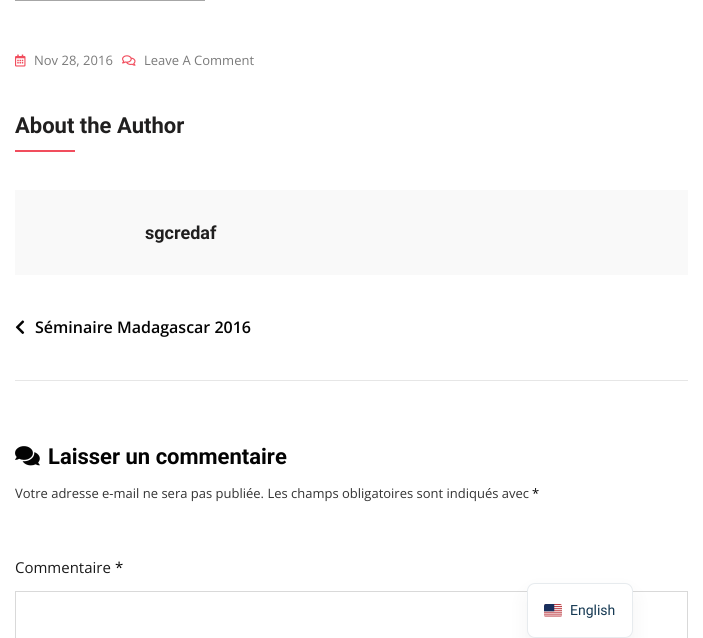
import math
import cairocffi as cairo

surface = cairo.ImageSurface(cairo.FORMAT_RGB24, 703, 638)
cr = cairo.Context(surface)
options = cairo.FontOptions()
options.set_hint_metrics(cairo.HINT_METRICS_OFF)
options.set_hint_style(cairo.HINT_STYLE_NONE)
cr.set_font_options(options)
cr.set_miter_limit(4)


def use_color(code):
    cr.set_source_rgb(*(v / 255 for v in bytes.fromhex(code[-6:])))


def round_rect(x, y, w, h, r):
    cr.new_sub_path()
    for i, (u, v) in enumerate([(x + w - r, y + h - r), (x + r, y + h - r), (x + r, y + r), (x + w - r, y + r)]):
        cr.arc(u, v, r, i * math.pi / 2, (i + 1) * math.pi / 2)
    cr.close_path()


def shadow(x, y, w, h, r, blur, alpha):
    cr.push_group_with_content(cairo.CONTENT_ALPHA)
    cr.set_operator(cairo.OPERATOR_SOURCE)
    for i in range(15, -16, -2):
        e = blur * i / 6
        if min(w, h) + 2 * e > 0:
            cr.set_source_rgba(0, 0, 0, alpha * math.erfc((i - 1) / 8.5) / 2)
            round_rect(x - e, y - e, w + 2 * e, h + 2 * e, max(0, min(r + e + blur * .6, min(w, h) / 2 + e)))
            cr.fill()
    cr.mask(cr.pop_group())


def picture(path, x, y, w, h):
    cr.save()
    cr.set_source_surface(cairo.ImageSurface.create_from_png(path), x, y)
    cr.rectangle(x, y, w, h)
    cr.fill()
    cr.restore()


use_color("#ffffff")
cr.paint()
use_color("#a6a6a6")
cr.rectangle(15, 0, 190, 1)
cr.fill()
picture("img1.png", 15, 54, 11, 13)
cr.select_font_face("Open Sans")
cr.set_font_size(13)
use_color("#7a7a7a")
cr.move_to(34, 65)
cr.show_text("Nov 28, 2016")
picture("img2.png", 122, 55, 14, 11)
cr.move_to(144, 65)
cr.show_text("Leave A Comment")
cr.select_font_face("Roboto", cairo.FONT_SLANT_NORMAL, cairo.FONT_WEIGHT_BOLD)
cr.set_font_size(22)
use_color("#201f1f")
cr.move_to(15, 133)
cr.show_text("About the Author")
use_color("#f14d5d")
cr.rectangle(15, 150, 60, 2)
cr.fill()
use_color("#f9f9f9")
cr.rectangle(15, 190, 673, 85)
cr.fill()
cr.set_font_size(18)
use_color("#201f1f")
cr.move_to(145, 239)
cr.show_text("sgcredaf")
use_color("#e6e6e6")
cr.rectangle(15, 380, 673, 1)
cr.fill()
picture("img3.png", 15, 320, 10, 14)
cr.select_font_face("Open Sans SemiBold")
cr.set_font_size(16)
use_color("#030303")
cr.move_to(35, 333)
cr.show_text("Séminaire Madagascar 2016")
picture("img4.png", 15, 446, 25, 20)
cr.select_font_face("Roboto", cairo.FONT_SLANT_NORMAL, cairo.FONT_WEIGHT_BOLD)
cr.set_font_size(22)
cr.move_to(48, 464)
cr.show_text("Laisser un commentaire")
cr.select_font_face("Open Sans")
cr.set_font_size(13)
use_color("#333333")
cr.move_to(15, 498)
cr.show_text("Votre adresse e-mail ne sera pas publiée. Les champs obligatoires sont indiqués avec")
use_color("#030303")
cr.move_to(532, 498)
cr.show_text("*")
cr.set_font_size(15)
use_color("#1a1a1a")
cr.move_to(15, 573)
cr.show_text("Commentaire")
use_color("#030303")
cr.move_to(115, 573)
cr.show_text("*")
cr.rectangle(15.5, 591.5, 672, 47)
use_color("#d9d9d9")
cr.set_line_width(1)
cr.stroke()
use_color("#000000")
shadow(527, 593, 106, 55, 8, 10, 0.05)
use_color("#ffffff")
round_rect(527.5, 583.5, 105, 54, 7.5)
cr.fill_preserve()
use_color("#e7ebee")
cr.stroke()
picture("img5.png", 544, 604, 18, 13)
cr.select_font_face("Roboto")
cr.set_font_size(14)
use_color("#143852")
cr.move_to(570, 615)
cr.show_text("English")
surface.write_to_png("result.png")
